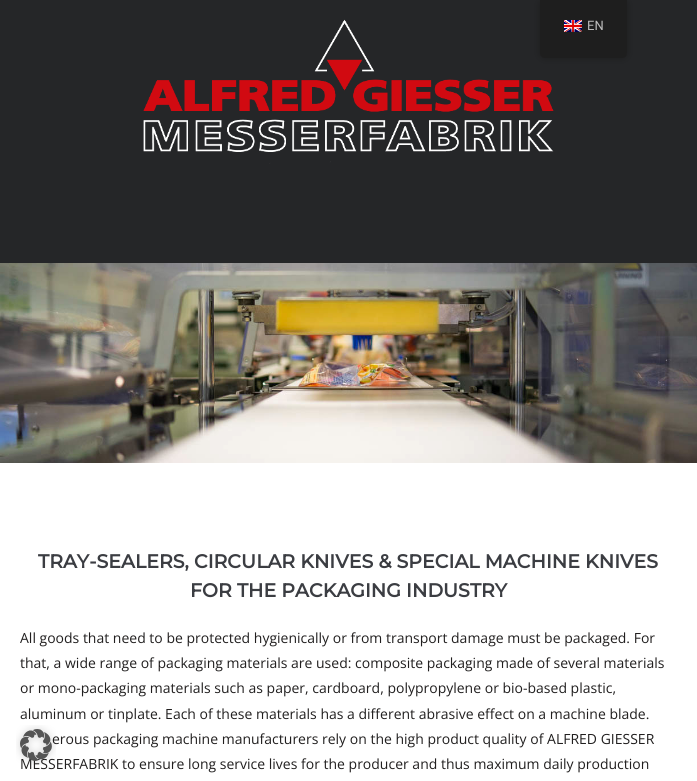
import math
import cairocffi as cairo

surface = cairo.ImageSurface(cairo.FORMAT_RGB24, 697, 781)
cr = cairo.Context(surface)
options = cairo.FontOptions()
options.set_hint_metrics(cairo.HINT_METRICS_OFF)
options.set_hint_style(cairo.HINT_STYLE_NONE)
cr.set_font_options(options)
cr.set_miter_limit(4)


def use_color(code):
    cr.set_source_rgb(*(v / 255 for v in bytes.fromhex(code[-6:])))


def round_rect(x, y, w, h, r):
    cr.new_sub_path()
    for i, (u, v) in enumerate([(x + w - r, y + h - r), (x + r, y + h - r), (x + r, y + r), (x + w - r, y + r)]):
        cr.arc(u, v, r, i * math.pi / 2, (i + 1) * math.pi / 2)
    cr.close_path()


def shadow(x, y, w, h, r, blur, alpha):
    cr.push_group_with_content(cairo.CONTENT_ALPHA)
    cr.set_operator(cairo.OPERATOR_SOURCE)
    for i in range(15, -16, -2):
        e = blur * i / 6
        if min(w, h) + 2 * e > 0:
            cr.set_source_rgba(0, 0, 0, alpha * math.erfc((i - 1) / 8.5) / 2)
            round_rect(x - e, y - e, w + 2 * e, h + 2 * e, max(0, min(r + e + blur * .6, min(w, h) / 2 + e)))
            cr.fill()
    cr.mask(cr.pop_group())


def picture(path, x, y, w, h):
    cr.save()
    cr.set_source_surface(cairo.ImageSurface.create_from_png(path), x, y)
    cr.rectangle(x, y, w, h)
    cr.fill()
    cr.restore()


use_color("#ffffff")
cr.paint()
use_color("#252628")
cr.rectangle(0, 0, 697, 263)
cr.fill()
picture("img2.png", 143, 19, 411, 145)
use_color("#000000")
shadow(540, 0, 87, 58, 5, 4, 0.25)
use_color("#1e1e1e")
cr.new_path()
cr.move_to(540, 0)
cr.line_to(627, 0)
cr.line_to(627, 53)
cr.curve_to(627, 56, 625, 58, 622, 58)
cr.line_to(545, 58)
cr.curve_to(542, 58, 540, 56, 540, 53)
cr.close_path()
cr.fill()
picture("img1.png", 564, 20, 18, 12)
cr.select_font_face("Roboto")
cr.set_font_size(13)
use_color("#bdbdbd")
cr.move_to(587, 30)
cr.show_text("EN")
picture("img3.png", 0, 263, 697, 200)
cr.select_font_face("Montserrat", cairo.FONT_SLANT_NORMAL, cairo.FONT_WEIGHT_BOLD)
cr.set_font_size(19)
use_color("#3b3d42")
cr.move_to(38, 568)
cr.show_text("TRAY-SEALERS, CIRCULAR KNIVES & SPECIAL MACHINE KNIVES")
cr.move_to(190, 597)
cr.show_text("FOR THE PACKAGING INDUSTRY")
cr.select_font_face("Open Sans")
cr.set_font_size(14)
use_color("#211f1f")
cr.move_to(20, 643)
cr.show_text("All goods that need to be protected hygienically or from transport damage must be packaged. For")
cr.move_to(20, 668)
cr.show_text("that, a wide range of packaging materials are used: composite packaging made of several materials")
cr.move_to(20, 693)
cr.show_text("or mono-packaging materials such as paper, cardboard, polypropylene or bio-based plastic,")
cr.move_to(20, 719)
cr.show_text("aluminum or tinplate. Each of these materials has a different abrasive effect on a machine blade.")
cr.move_to(52, 744)
cr.show_text("erous packaging machine manufacturers rely on the high product quality of ALFRED GIESSER")
cr.move_to(20, 769)
cr.show_text("MESSERFABRIK to ensure long service lives for the producer and thus maximum daily production")
picture("img4.png", 16, 725, 40, 40)
surface.write_to_png("result.png")
